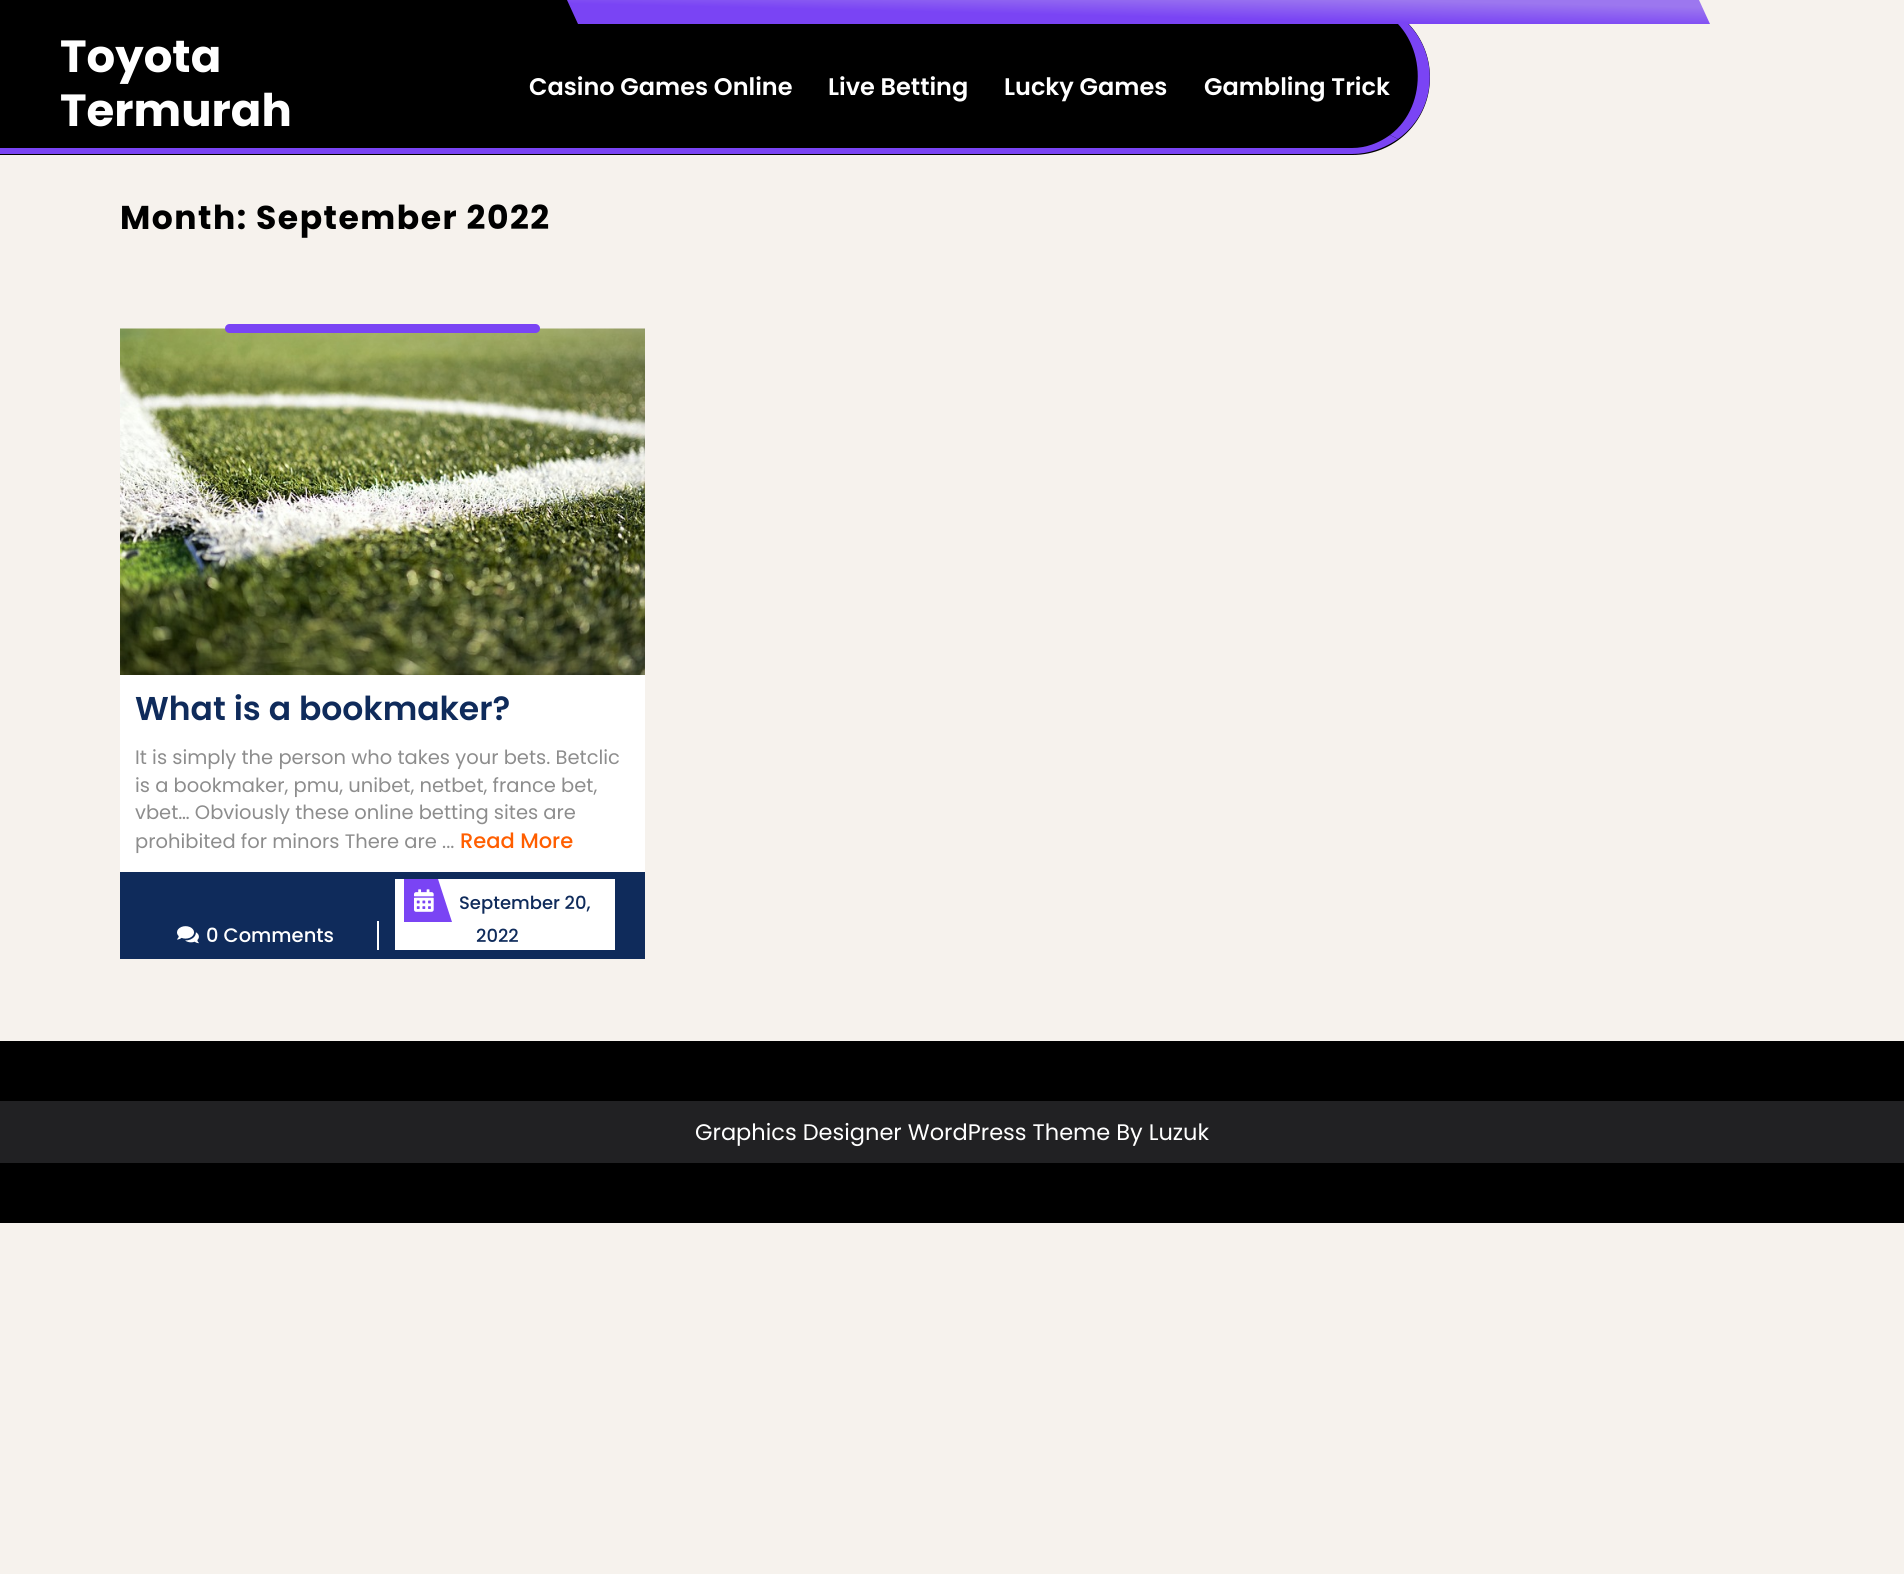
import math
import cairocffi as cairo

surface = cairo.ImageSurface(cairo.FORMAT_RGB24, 1904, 1574)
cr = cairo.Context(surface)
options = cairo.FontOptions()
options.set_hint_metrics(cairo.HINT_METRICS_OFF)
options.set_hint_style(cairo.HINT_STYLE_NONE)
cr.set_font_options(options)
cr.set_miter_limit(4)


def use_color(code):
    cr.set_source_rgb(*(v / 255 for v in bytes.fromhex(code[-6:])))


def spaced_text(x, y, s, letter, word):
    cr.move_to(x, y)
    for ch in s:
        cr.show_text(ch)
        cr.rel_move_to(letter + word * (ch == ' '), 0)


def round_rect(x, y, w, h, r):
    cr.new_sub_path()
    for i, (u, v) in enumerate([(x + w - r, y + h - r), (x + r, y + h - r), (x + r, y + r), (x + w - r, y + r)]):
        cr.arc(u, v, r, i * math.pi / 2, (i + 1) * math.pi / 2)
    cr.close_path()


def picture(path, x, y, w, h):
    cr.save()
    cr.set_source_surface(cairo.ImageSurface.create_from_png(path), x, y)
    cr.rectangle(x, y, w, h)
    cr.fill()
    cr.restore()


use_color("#f6f2ed")
cr.paint()
use_color("#000000")
cr.new_path()
cr.move_to(0, 0)
cr.line_to(1352.5, 0)
cr.curve_to(1395.5, 0, 1430, 34.5, 1430, 77.5)
cr.curve_to(1430, 120.5, 1395.5, 155, 1352.5, 155)
cr.line_to(0, 155)
cr.close_path()
cr.fill()
use_color("#7a44f4")
cr.new_path()
cr.move_to(1390, 135)
cr.curve_to(1430, 105, 1426, 37, 1383, 12)
cr.line_to(1390, 10)
cr.curve_to(1439, 37, 1444, 106, 1398, 139)
cr.close_path()
cr.fill()
gradient = cairo.LinearGradient(1138, 34, 1139, -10)
gradient.add_color_stop_rgba(0.4, 0.478, 0.267, 0.957, 1)
gradient.add_color_stop_rgba(0.9, 0.612, 0.467, 0.937, 1)
cr.set_source(gradient)
cr.new_path()
cr.move_to(567, 0)
cr.line_to(578, 24)
cr.line_to(1710, 24)
cr.line_to(1699, 0)
cr.close_path()
cr.fill()
use_color("#7a44f4")
cr.new_path()
cr.move_to(0, 148)
cr.line_to(0, 154)
cr.line_to(1352, 154)
cr.curve_to(1369, 154, 1385, 148, 1398, 139)
cr.line_to(1390, 135)
cr.curve_to(1379, 143, 1366, 148, 1352, 148)
cr.close_path()
cr.fill()
cr.select_font_face("Poppins", cairo.FONT_SLANT_NORMAL, cairo.FONT_WEIGHT_BOLD)
cr.set_font_size(45)
use_color("#ffffff")
cr.move_to(60, 72)
cr.show_text("Toyota")
cr.move_to(60, 126)
cr.show_text("Termurah")
cr.select_font_face("Poppins SemiBold")
cr.set_font_size(24)
cr.move_to(529, 95)
cr.show_text("Casino Games Online")
cr.move_to(828, 95)
cr.show_text("Live Betting")
cr.move_to(1004, 95)
cr.show_text("Lucky Games")
cr.move_to(1204, 95)
cr.show_text("Gambling Trick")
cr.select_font_face("Poppins", cairo.FONT_SLANT_NORMAL, cairo.FONT_WEIGHT_BOLD)
cr.set_font_size(33)
use_color("#000000")
spaced_text(120, 229, "Month: September 2022", 1.5, 0)
picture("img1.png", 120, 328, 525, 347)
use_color("#7a44f4")
round_rect(225, 324, 315, 9, 4.5)
cr.fill()
use_color("#ffffff")
cr.rectangle(120, 675, 525, 197)
cr.fill()
cr.select_font_face("Poppins SemiBold")
use_color("#0f2b5b")
cr.move_to(135, 720)
cr.show_text("What is a bookmaker?")
cr.select_font_face("Poppins")
cr.set_font_size(19.5)
use_color("#8d8d8d")
cr.move_to(135, 764)
cr.show_text("It is simply the person who takes your bets. Betclic")
cr.move_to(135, 792)
cr.show_text("is a bookmaker, pmu, unibet, netbet, france bet,")
cr.move_to(135, 819)
cr.show_text("vbet… Obviously these online betting sites are")
cr.move_to(135, 848)
cr.show_text("prohibited for minors There are ...")
cr.select_font_face("Poppins Medium")
cr.set_font_size(21)
use_color("#ff5e00")
cr.move_to(460, 848)
cr.show_text("Read More")
use_color("#0f2b5b")
cr.rectangle(120, 872, 525, 87)
cr.fill()
use_color("#ffffff")
cr.rectangle(377, 921, 2, 29)
cr.fill()
picture("img2.png", 177, 926, 22, 18)
cr.set_font_size(19.5)
cr.move_to(206, 942)
cr.show_text("0 Comments")
cr.rectangle(395, 879, 220, 71)
cr.fill()
use_color("#7a44f4")
cr.new_path()
cr.move_to(404, 879)
cr.line_to(438, 879)
cr.line_to(452, 922)
cr.line_to(404, 922)
cr.close_path()
cr.fill()
picture("img3.png", 414, 889, 20, 23)
cr.set_font_size(18)
use_color("#0f2b5b")
cr.move_to(459, 909)
cr.show_text("September 20,")
cr.move_to(476, 942)
cr.show_text("2022")
use_color("#000000")
cr.rectangle(0, 1041, 1904, 182)
cr.fill()
use_color("#212123")
cr.rectangle(0, 1101, 1904, 62)
cr.fill()
cr.select_font_face("Poppins")
cr.set_font_size(22.5)
use_color("#ffffff")
cr.move_to(695, 1140)
cr.show_text("Graphics Designer WordPress Theme By Luzuk")
surface.write_to_png("result.png")
